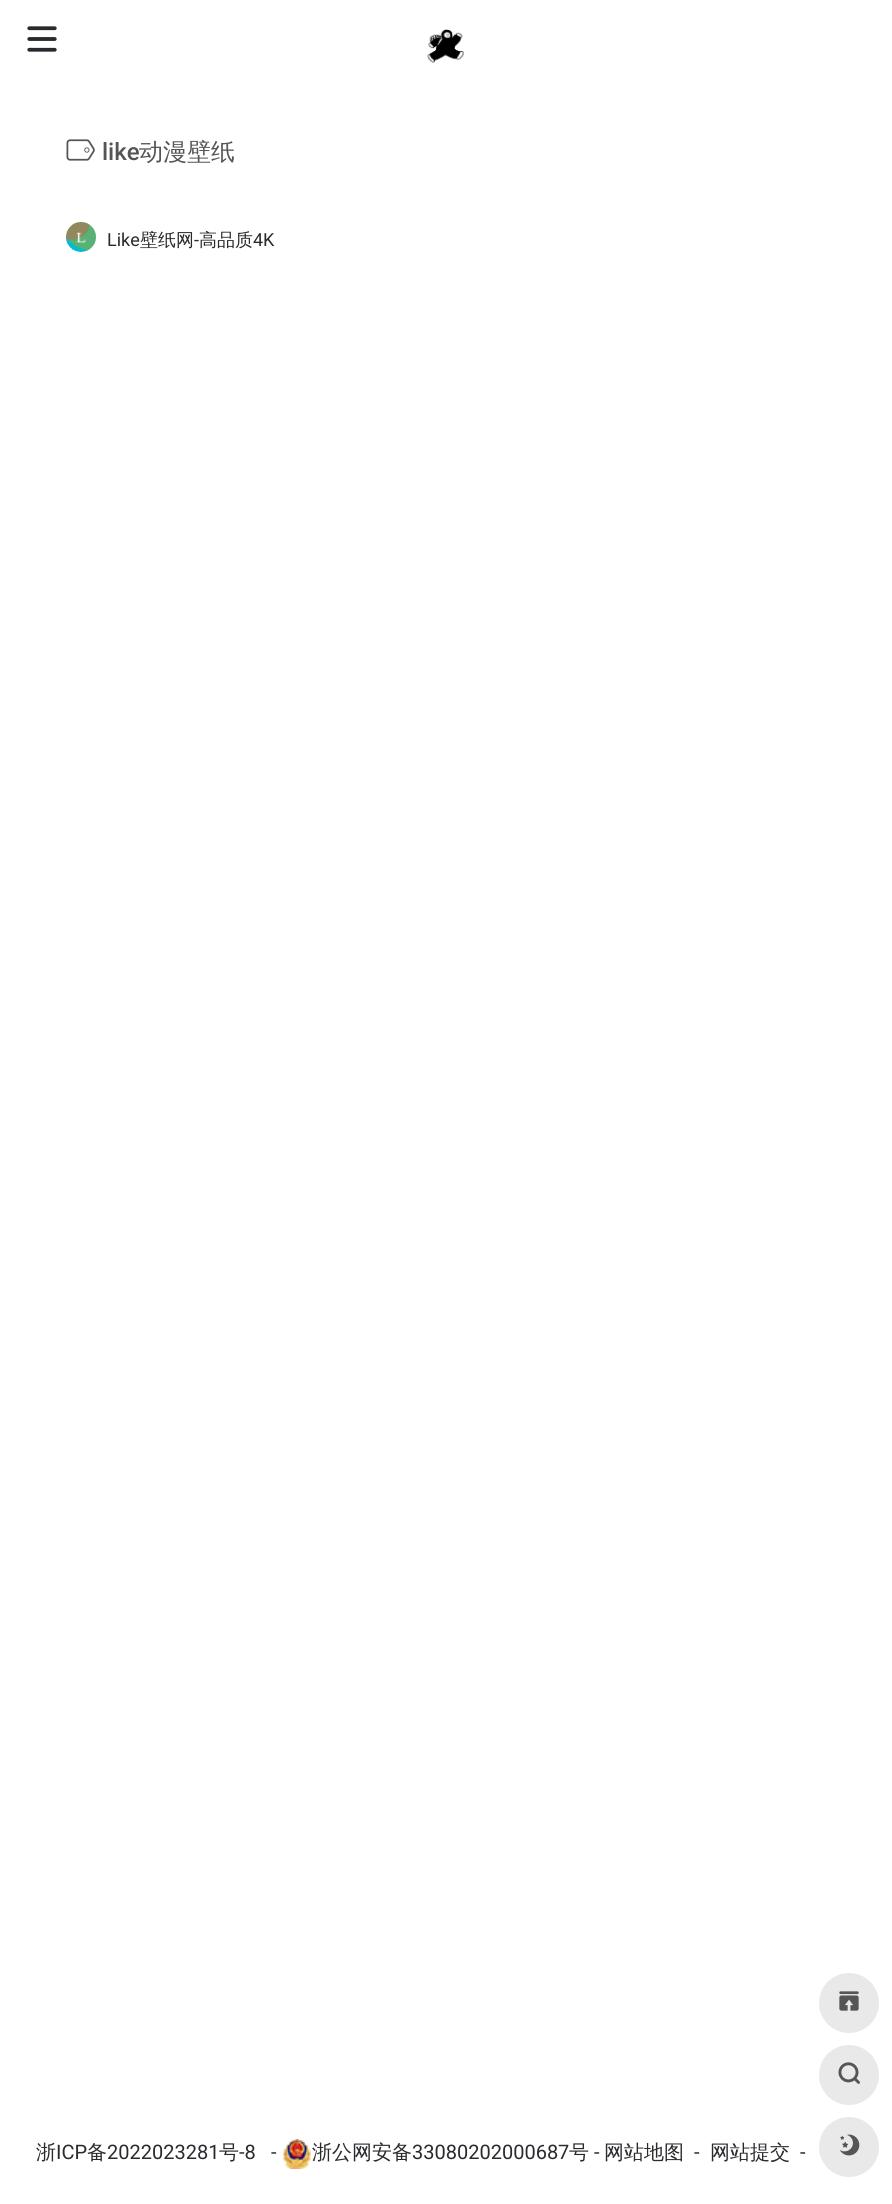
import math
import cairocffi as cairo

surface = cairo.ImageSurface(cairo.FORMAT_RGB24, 892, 2204)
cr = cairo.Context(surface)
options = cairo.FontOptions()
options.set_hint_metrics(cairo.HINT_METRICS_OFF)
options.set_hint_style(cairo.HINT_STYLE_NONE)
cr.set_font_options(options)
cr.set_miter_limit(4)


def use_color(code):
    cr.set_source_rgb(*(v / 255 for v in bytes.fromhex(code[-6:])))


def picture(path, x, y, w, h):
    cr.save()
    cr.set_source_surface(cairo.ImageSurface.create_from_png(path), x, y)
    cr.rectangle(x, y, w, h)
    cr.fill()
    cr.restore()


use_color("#ffffff")
cr.paint()
picture("img1.png", 27, 26, 30, 26)
picture("img2.png", 427, 29, 37, 34)
picture("img3.png", 66, 139, 29, 22)
cr.select_font_face("Roboto Medium")
cr.set_font_size(24)
use_color("#555555")
cr.move_to(102, 160)
cr.show_text("like")
cr.select_font_face("WenQuanYi Zen Hei Medium")
cr.move_to(139, 160)
cr.show_text("动漫壁纸")
use_color("#f2f2f2")
cr.new_path()
cr.arc(81, 237, 15, 0, 2 * math.pi)
cr.fill()
picture("img4.png", 66, 222, 30, 30)
cr.select_font_face("Roboto")
cr.set_font_size(18)
use_color("#282a2d")
cr.move_to(107, 246)
cr.show_text("Like")
cr.select_font_face("WenQuanYi Zen Hei Medium")
cr.move_to(140, 246)
cr.show_text("壁纸网")
cr.select_font_face("Roboto")
cr.move_to(194, 246)
cr.show_text("-")
cr.select_font_face("WenQuanYi Zen Hei Medium")
cr.move_to(199, 246)
cr.show_text("高品质")
cr.select_font_face("Roboto")
cr.move_to(253, 246)
cr.show_text("4K")
cr.select_font_face("WenQuanYi Zen Hei Medium")
cr.set_font_size(20)
cr.move_to(36, 2159)
cr.show_text("浙")
cr.select_font_face("Roboto")
cr.move_to(56, 2159)
cr.show_text("ICP")
cr.select_font_face("WenQuanYi Zen Hei Medium")
cr.move_to(87, 2159)
cr.show_text("备")
cr.select_font_face("Roboto")
cr.move_to(107, 2159)
cr.show_text("2022023281")
cr.select_font_face("WenQuanYi Zen Hei Medium")
cr.move_to(219, 2159)
cr.show_text("号")
cr.select_font_face("Roboto")
cr.move_to(239, 2159)
cr.show_text("-8")
cr.move_to(271, 2159)
cr.show_text("-")
picture("img5.png", 283, 2139, 28, 30)
cr.select_font_face("WenQuanYi Zen Hei Medium")
cr.move_to(312, 2159)
cr.show_text("浙公网安备")
cr.select_font_face("Roboto")
cr.move_to(412, 2159)
cr.show_text("33080202000687")
cr.select_font_face("WenQuanYi Zen Hei Medium")
cr.move_to(569, 2159)
cr.show_text("号")
cr.select_font_face("Roboto")
cr.move_to(594, 2159)
cr.show_text("-")
cr.select_font_face("WenQuanYi Zen Hei Medium")
cr.move_to(604, 2159)
cr.show_text("网站地图")
cr.select_font_face("Roboto")
cr.move_to(694, 2159)
cr.show_text("-")
cr.select_font_face("WenQuanYi Zen Hei Medium")
cr.move_to(710, 2159)
cr.show_text("网站提交")
cr.select_font_face("Roboto")
cr.move_to(800, 2159)
cr.show_text("-")
use_color("#e9e9e9")
cr.new_path()
cr.arc(849, 2003, 30, 0, 2 * math.pi)
cr.fill()
picture("img6.png", 839, 1991, 20, 20)
cr.arc(849, 2075, 30, 0, 2 * math.pi)
cr.fill()
picture("img7.png", 838, 2062, 22, 22)
cr.arc(849, 2147, 30, 0, 2 * math.pi)
cr.fill()
picture("img8.png", 839, 2134, 21, 22)
surface.write_to_png("result.png")
